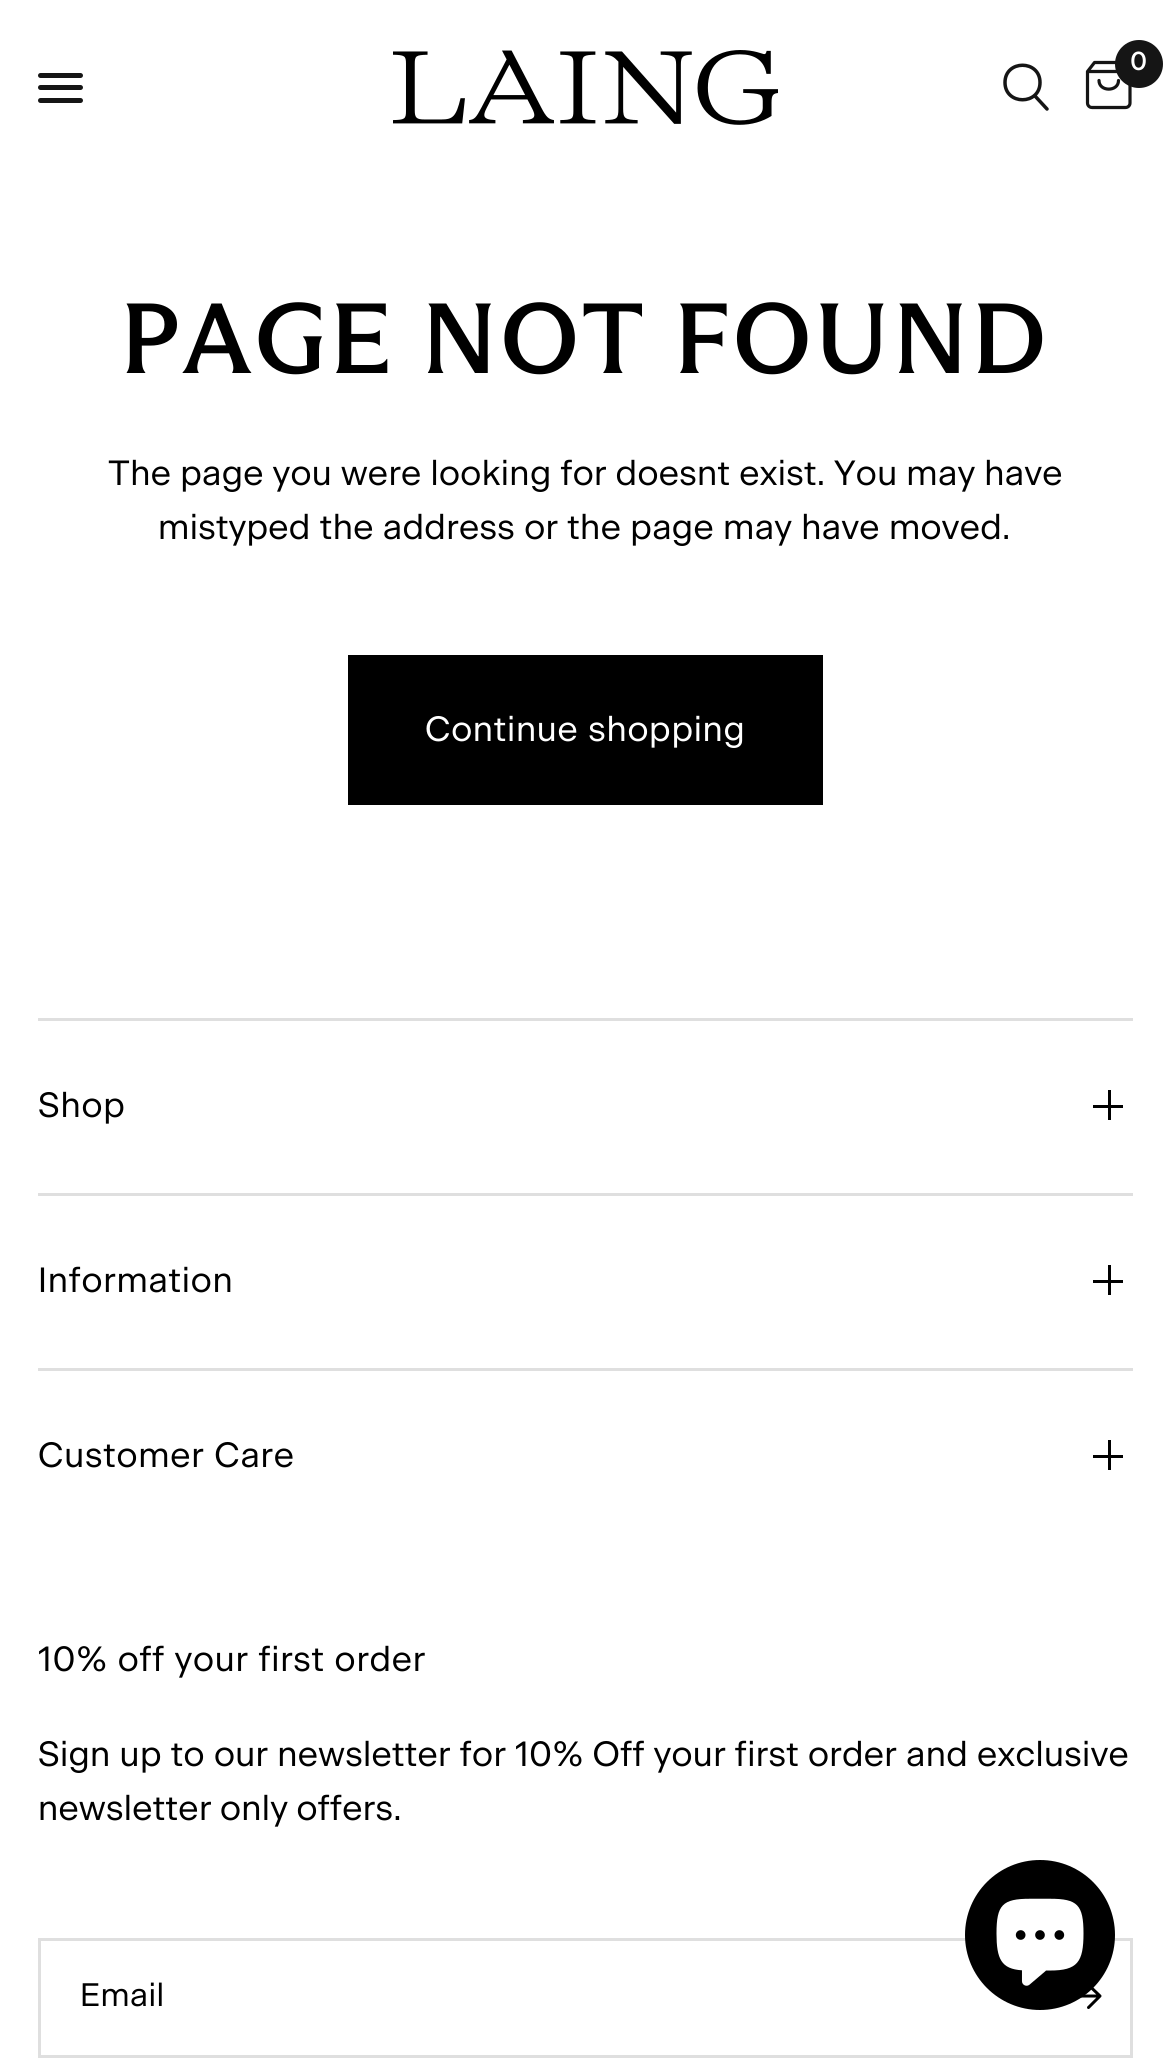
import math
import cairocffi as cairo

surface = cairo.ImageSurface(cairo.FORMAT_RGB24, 1170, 2061)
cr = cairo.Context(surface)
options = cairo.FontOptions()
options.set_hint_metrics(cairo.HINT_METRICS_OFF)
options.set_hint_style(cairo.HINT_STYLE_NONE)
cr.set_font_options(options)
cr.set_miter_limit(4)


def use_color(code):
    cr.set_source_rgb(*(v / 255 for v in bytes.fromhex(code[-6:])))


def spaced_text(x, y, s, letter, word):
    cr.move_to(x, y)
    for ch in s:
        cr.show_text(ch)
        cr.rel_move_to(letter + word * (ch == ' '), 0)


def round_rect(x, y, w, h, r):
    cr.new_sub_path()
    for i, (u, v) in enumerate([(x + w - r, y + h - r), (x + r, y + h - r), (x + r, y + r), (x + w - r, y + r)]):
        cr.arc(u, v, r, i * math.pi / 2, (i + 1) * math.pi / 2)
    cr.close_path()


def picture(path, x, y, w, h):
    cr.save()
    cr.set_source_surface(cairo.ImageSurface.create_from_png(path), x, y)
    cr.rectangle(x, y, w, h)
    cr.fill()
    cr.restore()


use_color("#ffffff")
cr.paint()
picture("img1.png", 393, 50, 385, 75)
cr.new_path()
cr.move_to(1035, 96)
cr.line_to(1047, 109)
cr.move_to(1040, 82.5)
cr.curve_to(1040, 105.5, 1005, 105.5, 1005, 82.5)
cr.curve_to(1005, 59.5, 1040, 59.5, 1040, 82.5)
cr.close_path()
use_color("#151515")
cr.set_line_width(3.5)
cr.set_line_cap(cairo.LINE_CAP_ROUND)
cr.set_line_join(cairo.LINE_JOIN_ROUND)
cr.stroke()
cr.new_path()
cr.move_to(1087.5, 71.5)
cr.line_to(1094.5, 62.5)
cr.line_to(1123, 62.5)
cr.line_to(1130, 71.5)
cr.move_to(1087.5, 71.5)
cr.line_to(1087.5, 103)
cr.curve_to(1087.5, 105.5, 1089.5, 107.5, 1092, 107.5)
cr.line_to(1125.5, 107.5)
cr.curve_to(1128, 107.5, 1130, 105.5, 1130, 103)
cr.line_to(1130, 71.5)
cr.move_to(1087.5, 71.5)
cr.line_to(1130, 71.5)
cr.move_to(1118.5, 80.5)
cr.curve_to(1118.5, 92, 1099, 92, 1099, 80.5)
cr.set_line_width(3.2)
cr.stroke()
cr.arc(1139, 64, 24, 0, 2 * math.pi)
cr.fill()
cr.select_font_face("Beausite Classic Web", cairo.FONT_SLANT_NORMAL, cairo.FONT_WEIGHT_BOLD)
cr.set_font_size(25)
use_color("#ffffff")
spaced_text(1130, 70, "0", 0.35, 0)
use_color("#151515")
round_rect(38, 73, 45, 5, 2.5)
cr.fill()
round_rect(38, 85, 45, 5, 2.5)
cr.fill()
round_rect(38, 98, 45, 5, 2.5)
cr.fill()
cr.select_font_face("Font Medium")
cr.set_font_size(100)
use_color("#000000")
spaced_text(120, 373, "PAGE NOT FOUND", 3, 0)
cr.select_font_face("Beausite Classic Web")
cr.set_font_size(35)
spaced_text(108, 485, "The page you were looking for doesnt exist. You may have", 0.35, -0.5)
spaced_text(158, 539, "mistyped the address or the page may have moved.", 0.35, -0.25)
cr.rectangle(348, 655, 475, 150)
cr.fill()
use_color("#ffffff")
spaced_text(425, 741, "Continue shopping", 0.75, 0)
use_color("#dfdfdf")
cr.rectangle(38, 1018, 1095, 3)
cr.fill()
use_color("#000000")
spaced_text(38, 1117, "Shop", 0.8, 0)
cr.rectangle(1108, 1090, 3, 30)
cr.fill()
cr.rectangle(1093, 1105, 30, 3)
cr.fill()
use_color("#dfdfdf")
cr.rectangle(38, 1193, 1095, 3)
cr.fill()
use_color("#000000")
spaced_text(38, 1292, "Information", 0.8, 0)
cr.rectangle(1108, 1265, 3, 30)
cr.fill()
cr.rectangle(1093, 1280, 30, 3)
cr.fill()
use_color("#dfdfdf")
cr.rectangle(38, 1368, 1095, 3)
cr.fill()
use_color("#000000")
spaced_text(38, 1467, "Customer Care", 0.8, 0)
cr.rectangle(1108, 1440, 3, 30)
cr.fill()
cr.rectangle(1093, 1455, 30, 3)
cr.fill()
spaced_text(38, 1671, "10% off your first order", 0.8, 0)
spaced_text(38, 1766, "Sign up to our newsletter for 10% Off your first order and exclusive", 0.35, -0.4)
spaced_text(38, 1820, "newsletter only offers.", 0.35, -1)
cr.rectangle(39.5, 1939.5, 1092, 117)
use_color("#dfdfdf")
cr.set_line_width(3)
cr.set_line_cap(cairo.LINE_CAP_BUTT)
cr.set_line_join(cairo.LINE_JOIN_MITER)
cr.stroke()
cr.set_font_size(32.5)
use_color("#000000")
spaced_text(80, 2006, "Email", 0.5, 0)
cr.new_path()
cr.move_to(1067, 1996)
cr.line_to(1097, 1996)
cr.move_to(1088.5, 1985)
cr.line_to(1100, 1996)
cr.line_to(1088.5, 2007.5)
cr.set_line_cap(cairo.LINE_CAP_ROUND)
cr.set_line_join(cairo.LINE_JOIN_ROUND)
cr.stroke()
cr.arc(1040, 1935, 75, 0, 2 * math.pi)
cr.fill()
picture("img2.png", 996, 1898, 88, 88)
surface.write_to_png("result.png")
